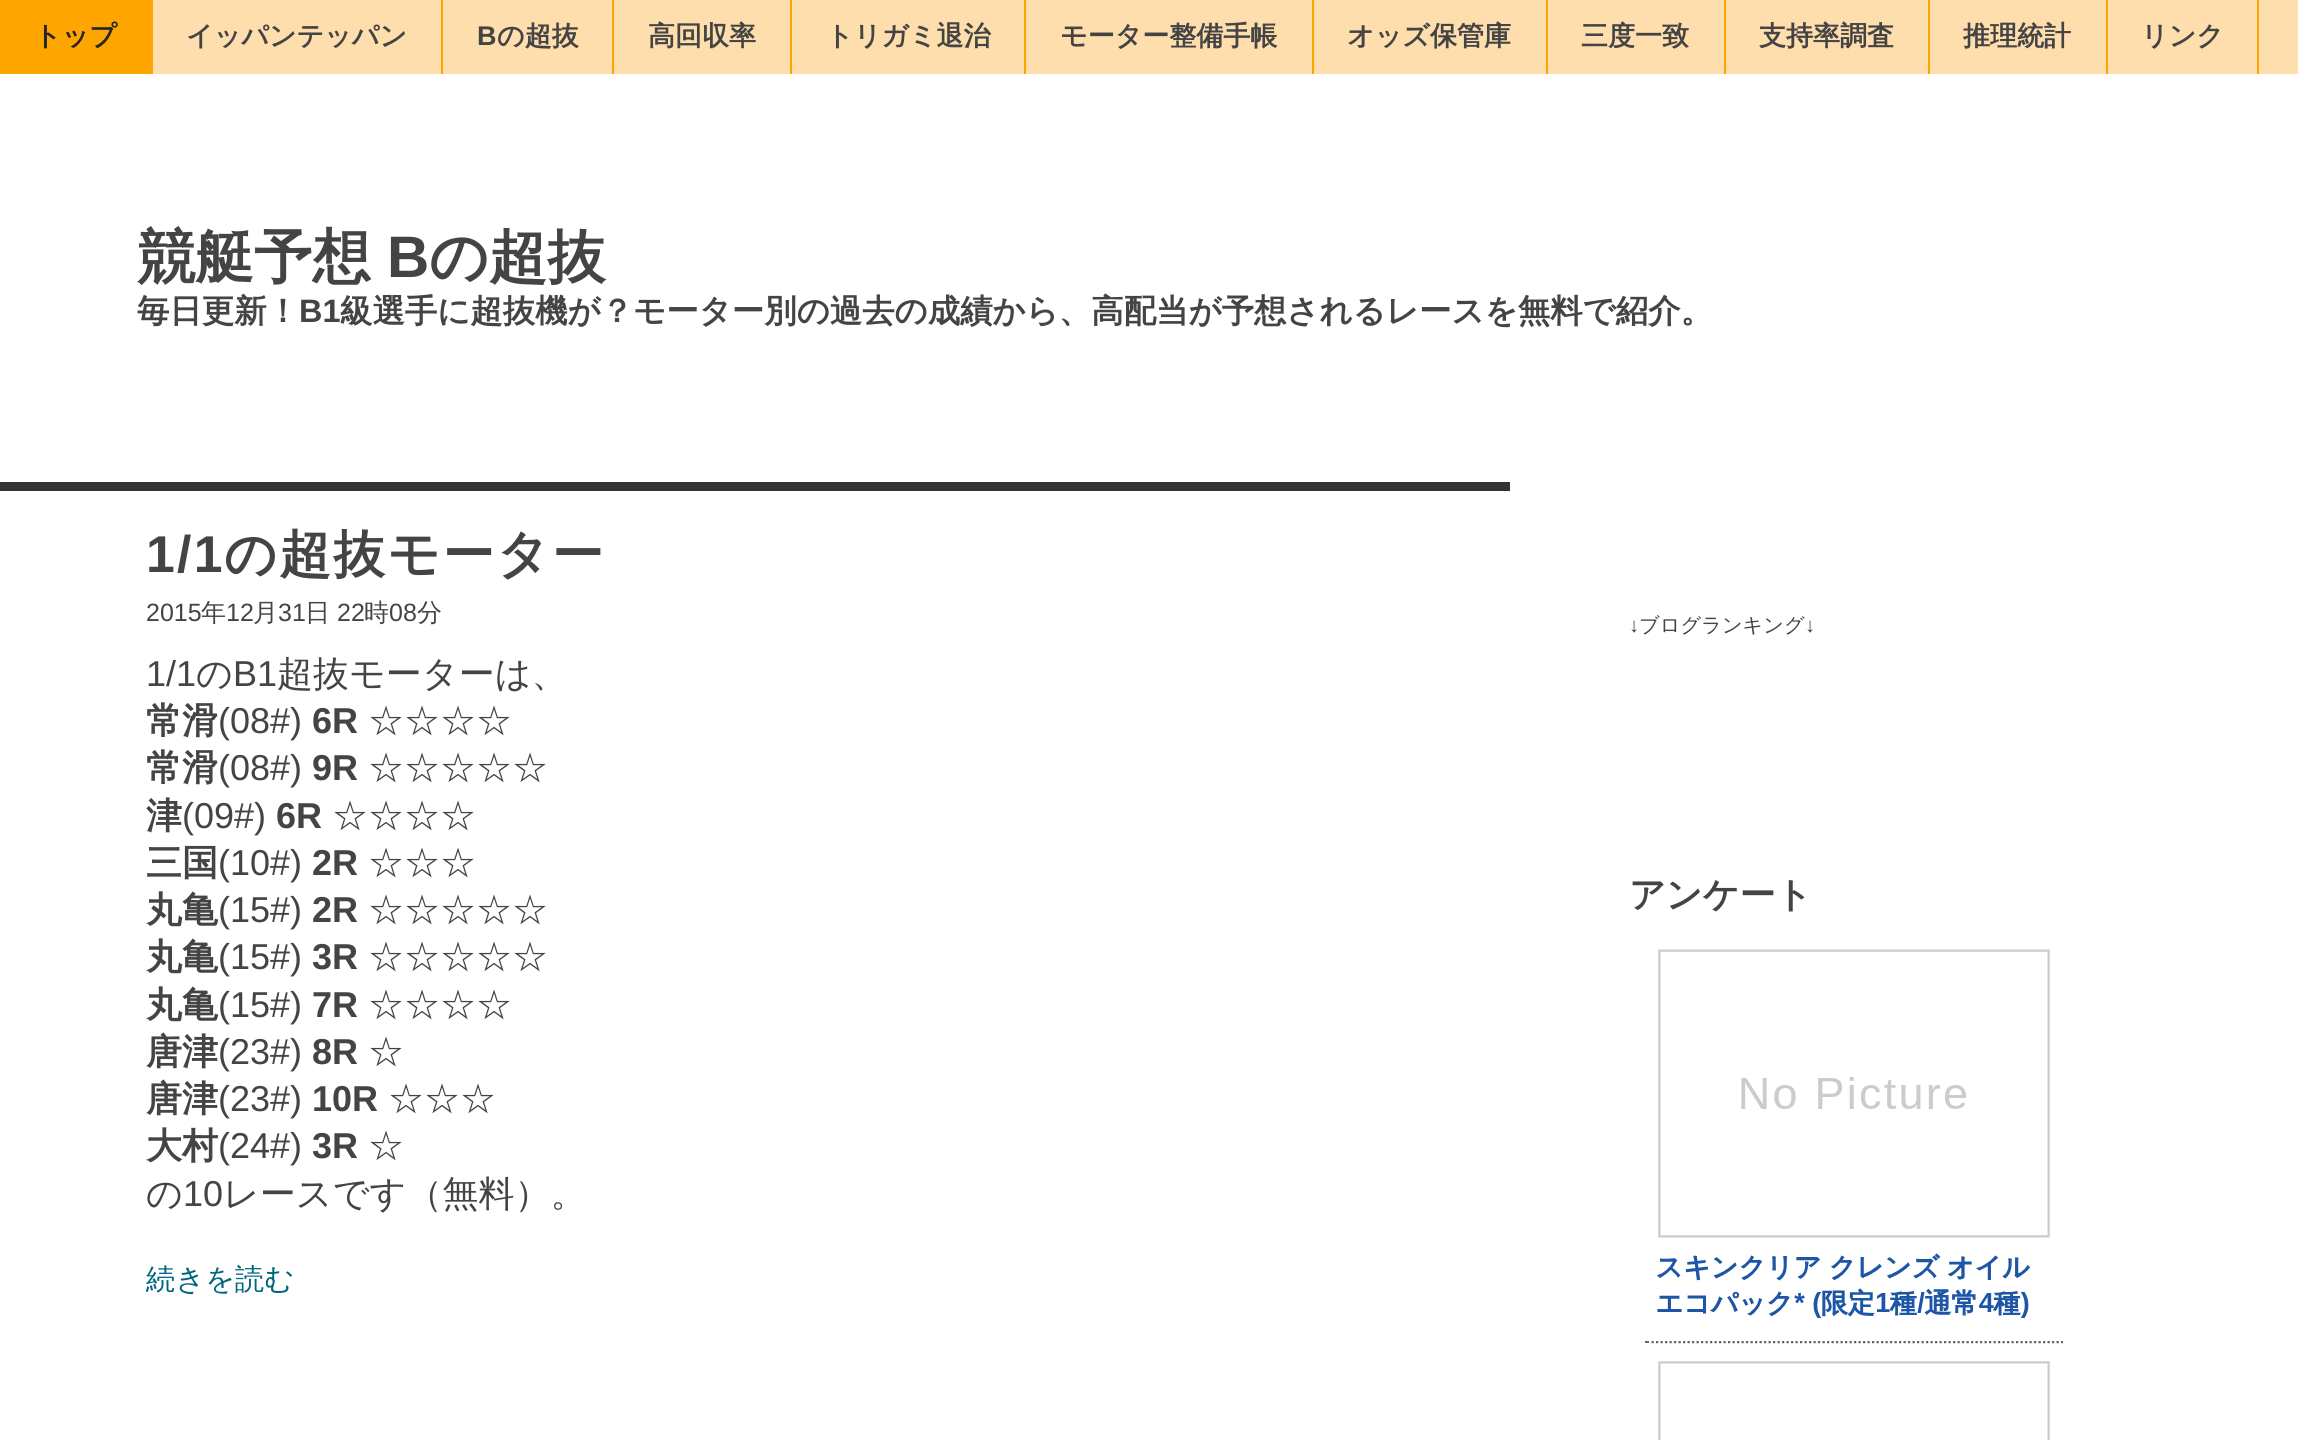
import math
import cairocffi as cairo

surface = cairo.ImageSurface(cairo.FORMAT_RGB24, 2298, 1440)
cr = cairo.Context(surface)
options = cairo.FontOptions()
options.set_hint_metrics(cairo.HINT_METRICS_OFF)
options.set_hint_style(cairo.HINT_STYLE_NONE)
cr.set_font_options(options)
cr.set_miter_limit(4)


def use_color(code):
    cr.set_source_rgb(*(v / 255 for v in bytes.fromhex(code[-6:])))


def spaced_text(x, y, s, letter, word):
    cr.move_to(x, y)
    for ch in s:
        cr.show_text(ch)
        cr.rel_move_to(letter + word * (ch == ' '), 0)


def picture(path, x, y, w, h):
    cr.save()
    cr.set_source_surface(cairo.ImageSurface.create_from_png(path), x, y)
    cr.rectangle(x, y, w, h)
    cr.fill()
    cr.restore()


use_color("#ffffff")
cr.paint()
use_color("#ffdead")
cr.rectangle(153, 0, 2145, 74)
cr.fill()
use_color("#ffa500")
cr.rectangle(0, 0, 153, 74)
cr.fill()
cr.select_font_face("WenQuanYi Zen Hei", cairo.FONT_SLANT_NORMAL, cairo.FONT_WEIGHT_BOLD)
cr.set_font_size(27)
use_color("#252525")
cr.move_to(34, 45)
cr.show_text("トップ")
use_color("#ffa500")
cr.rectangle(441, 0, 2, 74)
cr.fill()
use_color("#444444")
cr.move_to(186, 45)
cr.show_text("イッパンテッパン")
use_color("#ffa500")
cr.rectangle(612, 0, 2, 74)
cr.fill()
cr.select_font_face("Liberation Sans", cairo.FONT_SLANT_NORMAL, cairo.FONT_WEIGHT_BOLD)
use_color("#444444")
cr.move_to(477, 45)
cr.show_text("B")
cr.select_font_face("WenQuanYi Zen Hei", cairo.FONT_SLANT_NORMAL, cairo.FONT_WEIGHT_BOLD)
cr.move_to(497, 45)
cr.show_text("の超抜")
use_color("#ffa500")
cr.rectangle(790, 0, 2, 74)
cr.fill()
use_color("#444444")
cr.move_to(648, 45)
cr.show_text("高回収率")
use_color("#ffa500")
cr.rectangle(1024, 0, 2, 74)
cr.fill()
use_color("#444444")
cr.move_to(826, 45)
cr.show_text("トリガミ退治")
use_color("#ffa500")
cr.rectangle(1312, 0, 2, 74)
cr.fill()
use_color("#444444")
cr.move_to(1060, 45)
cr.show_text("モーター整備手帳")
use_color("#ffa500")
cr.rectangle(1546, 0, 2, 74)
cr.fill()
use_color("#444444")
cr.move_to(1347, 45)
cr.show_text("オッズ保管庫")
use_color("#ffa500")
cr.rectangle(1724, 0, 2, 74)
cr.fill()
use_color("#444444")
cr.move_to(1581, 45)
cr.show_text("三度一致")
use_color("#ffa500")
cr.rectangle(1928, 0, 2, 74)
cr.fill()
use_color("#444444")
cr.move_to(1759, 45)
cr.show_text("支持率調査")
use_color("#ffa500")
cr.rectangle(2106, 0, 2, 74)
cr.fill()
use_color("#444444")
cr.move_to(1963, 45)
cr.show_text("推理統計")
use_color("#ffa500")
cr.rectangle(2257, 0, 2, 74)
cr.fill()
use_color("#444444")
cr.move_to(2141, 45)
cr.show_text("リンク")
cr.set_font_size(58.5)
cr.move_to(137, 277)
cr.show_text("競艇予想")
cr.select_font_face("Liberation Sans", cairo.FONT_SLANT_NORMAL, cairo.FONT_WEIGHT_BOLD)
cr.move_to(387, 277)
cr.show_text("B")
cr.select_font_face("WenQuanYi Zen Hei", cairo.FONT_SLANT_NORMAL, cairo.FONT_WEIGHT_BOLD)
cr.move_to(429, 277)
cr.show_text("の超抜")
cr.set_font_size(32.4)
cr.move_to(137, 322)
cr.show_text("毎日更新！")
cr.select_font_face("Liberation Sans", cairo.FONT_SLANT_NORMAL, cairo.FONT_WEIGHT_BOLD)
cr.move_to(299, 322)
cr.show_text("B1")
cr.select_font_face("WenQuanYi Zen Hei", cairo.FONT_SLANT_NORMAL, cairo.FONT_WEIGHT_BOLD)
cr.move_to(340, 322)
cr.show_text("級選手に超抜機が？モーター別の過去の成績から、高配当が予想されるレースを無料で紹介。")
use_color("#333333")
cr.rectangle(0, 482, 1510, 9)
cr.fill()
cr.select_font_face("Liberation Sans", cairo.FONT_SLANT_NORMAL, cairo.FONT_WEIGHT_BOLD)
cr.set_font_size(51.75)
use_color("#444444")
spaced_text(146, 572, "1/1", 2.25, 0)
cr.select_font_face("WenQuanYi Zen Hei", cairo.FONT_SLANT_NORMAL, cairo.FONT_WEIGHT_BOLD)
spaced_text(224, 572, "の超抜モーター", 2.25, 0)
cr.select_font_face("Liberation Sans")
cr.set_font_size(25)
cr.move_to(146, 621)
cr.show_text("2015")
cr.select_font_face("WenQuanYi Zen Hei Medium")
cr.move_to(201, 621)
cr.show_text("年")
cr.select_font_face("Liberation Sans")
cr.move_to(226, 621)
cr.show_text("12")
cr.select_font_face("WenQuanYi Zen Hei Medium")
cr.move_to(253, 621)
cr.show_text("月")
cr.select_font_face("Liberation Sans")
cr.move_to(278, 621)
cr.show_text("31")
cr.select_font_face("WenQuanYi Zen Hei Medium")
cr.move_to(305, 621)
cr.show_text("日")
cr.select_font_face("Liberation Sans")
cr.move_to(337, 621)
cr.show_text("22")
cr.select_font_face("WenQuanYi Zen Hei Medium")
cr.move_to(364, 621)
cr.show_text("時")
cr.select_font_face("Liberation Sans")
cr.move_to(389, 621)
cr.show_text("08")
cr.select_font_face("WenQuanYi Zen Hei Medium")
cr.move_to(417, 621)
cr.show_text("分")
cr.select_font_face("Liberation Sans")
cr.set_font_size(36)
cr.move_to(146, 686)
cr.show_text("1/1")
cr.select_font_face("WenQuanYi Zen Hei Medium")
cr.move_to(196, 686)
cr.show_text("の")
cr.select_font_face("Liberation Sans")
cr.move_to(233, 686)
cr.show_text("B1")
cr.select_font_face("WenQuanYi Zen Hei Medium")
cr.move_to(277, 686)
cr.show_text("超抜モーターは、")
cr.select_font_face("WenQuanYi Zen Hei", cairo.FONT_SLANT_NORMAL, cairo.FONT_WEIGHT_BOLD)
cr.move_to(146, 733)
cr.show_text("常滑")
cr.select_font_face("Liberation Sans")
cr.move_to(218, 733)
cr.show_text("(08#)")
cr.select_font_face("Liberation Sans", cairo.FONT_SLANT_NORMAL, cairo.FONT_WEIGHT_BOLD)
cr.move_to(312, 733)
cr.show_text("6R")
cr.select_font_face("WenQuanYi Zen Hei Medium")
cr.move_to(368, 733)
cr.show_text("☆☆☆☆")
cr.select_font_face("WenQuanYi Zen Hei", cairo.FONT_SLANT_NORMAL, cairo.FONT_WEIGHT_BOLD)
cr.move_to(146, 780)
cr.show_text("常滑")
cr.select_font_face("Liberation Sans")
cr.move_to(218, 780)
cr.show_text("(08#)")
cr.select_font_face("Liberation Sans", cairo.FONT_SLANT_NORMAL, cairo.FONT_WEIGHT_BOLD)
cr.move_to(312, 780)
cr.show_text("9R")
cr.select_font_face("WenQuanYi Zen Hei Medium")
cr.move_to(368, 780)
cr.show_text("☆☆☆☆☆")
cr.select_font_face("WenQuanYi Zen Hei", cairo.FONT_SLANT_NORMAL, cairo.FONT_WEIGHT_BOLD)
cr.move_to(146, 828)
cr.show_text("津")
cr.select_font_face("Liberation Sans")
cr.move_to(182, 828)
cr.show_text("(09#)")
cr.select_font_face("Liberation Sans", cairo.FONT_SLANT_NORMAL, cairo.FONT_WEIGHT_BOLD)
cr.move_to(276, 828)
cr.show_text("6R")
cr.select_font_face("WenQuanYi Zen Hei Medium")
cr.move_to(332, 828)
cr.show_text("☆☆☆☆")
cr.select_font_face("WenQuanYi Zen Hei", cairo.FONT_SLANT_NORMAL, cairo.FONT_WEIGHT_BOLD)
cr.move_to(146, 875)
cr.show_text("三国")
cr.select_font_face("Liberation Sans")
cr.move_to(218, 875)
cr.show_text("(10#)")
cr.select_font_face("Liberation Sans", cairo.FONT_SLANT_NORMAL, cairo.FONT_WEIGHT_BOLD)
cr.move_to(312, 875)
cr.show_text("2R")
cr.select_font_face("WenQuanYi Zen Hei Medium")
cr.move_to(368, 875)
cr.show_text("☆☆☆")
cr.select_font_face("WenQuanYi Zen Hei", cairo.FONT_SLANT_NORMAL, cairo.FONT_WEIGHT_BOLD)
cr.move_to(146, 922)
cr.show_text("丸亀")
cr.select_font_face("Liberation Sans")
cr.move_to(218, 922)
cr.show_text("(15#)")
cr.select_font_face("Liberation Sans", cairo.FONT_SLANT_NORMAL, cairo.FONT_WEIGHT_BOLD)
cr.move_to(312, 922)
cr.show_text("2R")
cr.select_font_face("WenQuanYi Zen Hei Medium")
cr.move_to(368, 922)
cr.show_text("☆☆☆☆☆")
cr.select_font_face("WenQuanYi Zen Hei", cairo.FONT_SLANT_NORMAL, cairo.FONT_WEIGHT_BOLD)
cr.move_to(146, 969)
cr.show_text("丸亀")
cr.select_font_face("Liberation Sans")
cr.move_to(218, 969)
cr.show_text("(15#)")
cr.select_font_face("Liberation Sans", cairo.FONT_SLANT_NORMAL, cairo.FONT_WEIGHT_BOLD)
cr.move_to(312, 969)
cr.show_text("3R")
cr.select_font_face("WenQuanYi Zen Hei Medium")
cr.move_to(368, 969)
cr.show_text("☆☆☆☆☆")
cr.select_font_face("WenQuanYi Zen Hei", cairo.FONT_SLANT_NORMAL, cairo.FONT_WEIGHT_BOLD)
cr.move_to(146, 1017)
cr.show_text("丸亀")
cr.select_font_face("Liberation Sans")
cr.move_to(218, 1017)
cr.show_text("(15#)")
cr.select_font_face("Liberation Sans", cairo.FONT_SLANT_NORMAL, cairo.FONT_WEIGHT_BOLD)
cr.move_to(312, 1017)
cr.show_text("7R")
cr.select_font_face("WenQuanYi Zen Hei Medium")
cr.move_to(368, 1017)
cr.show_text("☆☆☆☆")
cr.select_font_face("WenQuanYi Zen Hei", cairo.FONT_SLANT_NORMAL, cairo.FONT_WEIGHT_BOLD)
cr.move_to(146, 1064)
cr.show_text("唐津")
cr.select_font_face("Liberation Sans")
cr.move_to(218, 1064)
cr.show_text("(23#)")
cr.select_font_face("Liberation Sans", cairo.FONT_SLANT_NORMAL, cairo.FONT_WEIGHT_BOLD)
cr.move_to(312, 1064)
cr.show_text("8R")
cr.select_font_face("WenQuanYi Zen Hei Medium")
cr.move_to(368, 1064)
cr.show_text("☆")
cr.select_font_face("WenQuanYi Zen Hei", cairo.FONT_SLANT_NORMAL, cairo.FONT_WEIGHT_BOLD)
cr.move_to(146, 1111)
cr.show_text("唐津")
cr.select_font_face("Liberation Sans")
cr.move_to(218, 1111)
cr.show_text("(23#)")
cr.select_font_face("Liberation Sans", cairo.FONT_SLANT_NORMAL, cairo.FONT_WEIGHT_BOLD)
cr.move_to(312, 1111)
cr.show_text("10R")
cr.select_font_face("WenQuanYi Zen Hei Medium")
cr.move_to(388, 1111)
cr.show_text("☆☆☆")
cr.select_font_face("WenQuanYi Zen Hei", cairo.FONT_SLANT_NORMAL, cairo.FONT_WEIGHT_BOLD)
cr.move_to(146, 1158)
cr.show_text("大村")
cr.select_font_face("Liberation Sans")
cr.move_to(218, 1158)
cr.show_text("(24#)")
cr.select_font_face("Liberation Sans", cairo.FONT_SLANT_NORMAL, cairo.FONT_WEIGHT_BOLD)
cr.move_to(312, 1158)
cr.show_text("3R")
cr.select_font_face("WenQuanYi Zen Hei Medium")
cr.move_to(368, 1158)
cr.show_text("☆")
cr.move_to(146, 1206)
cr.show_text("の")
cr.select_font_face("Liberation Sans")
cr.move_to(183, 1206)
cr.show_text("10")
cr.select_font_face("WenQuanYi Zen Hei Medium")
cr.move_to(223, 1206)
cr.show_text("レースです（無料）。")
cr.set_font_size(29.25)
use_color("#00657e")
cr.move_to(146, 1289)
cr.show_text("続きを読む")
cr.select_font_face("Liberation Sans")
cr.set_font_size(20.25)
use_color("#444444")
cr.move_to(1629, 632)
cr.show_text("↓")
cr.select_font_face("WenQuanYi Zen Hei Medium")
cr.move_to(1639, 632)
cr.show_text("ブログランキング")
cr.select_font_face("Liberation Sans")
cr.move_to(1805, 632)
cr.show_text("↓")
cr.select_font_face("WenQuanYi Zen Hei", cairo.FONT_SLANT_NORMAL, cairo.FONT_WEIGHT_BOLD)
cr.set_font_size(36)
cr.move_to(1629, 907)
cr.show_text("アンケート")
picture("img1.png", 1645, 949, 419, 491)
surface.write_to_png("result.png")
